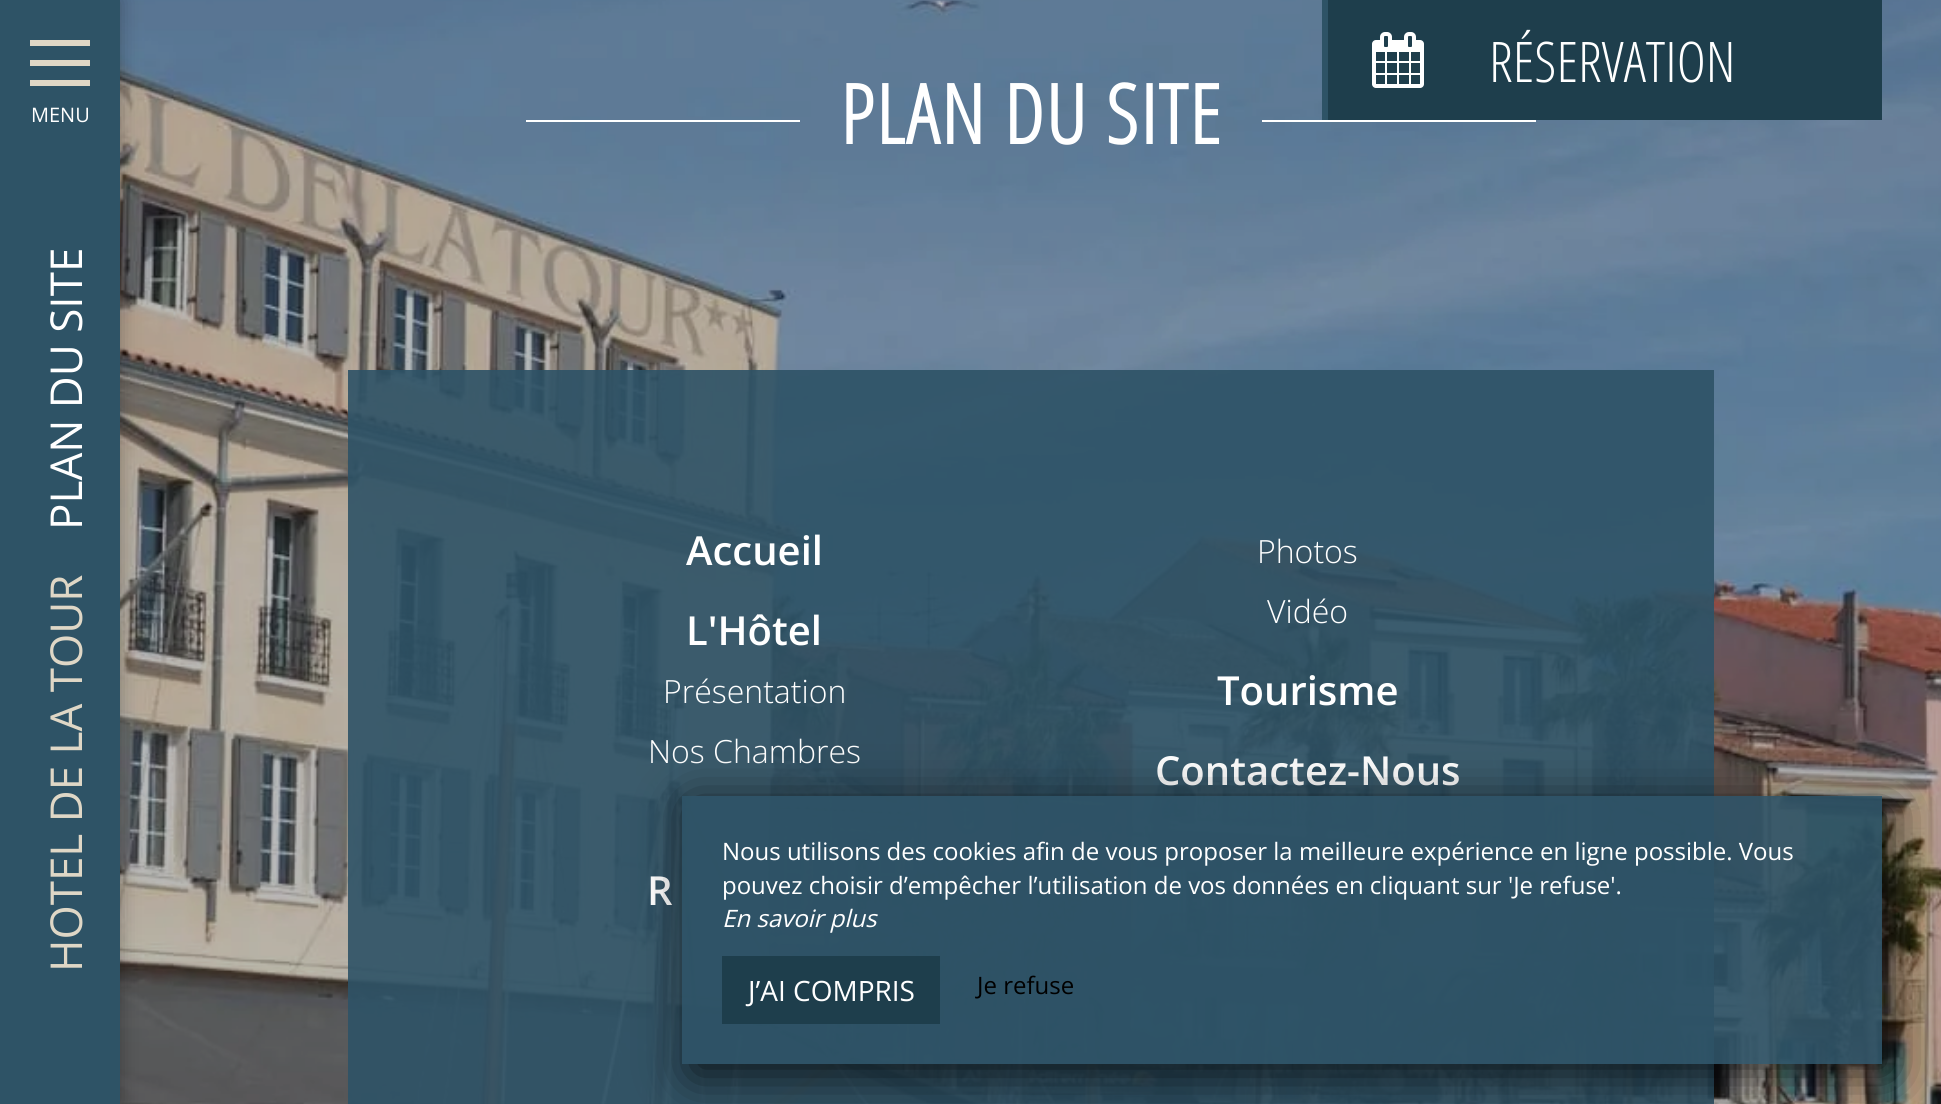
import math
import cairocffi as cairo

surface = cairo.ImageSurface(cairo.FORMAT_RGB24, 1941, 1104)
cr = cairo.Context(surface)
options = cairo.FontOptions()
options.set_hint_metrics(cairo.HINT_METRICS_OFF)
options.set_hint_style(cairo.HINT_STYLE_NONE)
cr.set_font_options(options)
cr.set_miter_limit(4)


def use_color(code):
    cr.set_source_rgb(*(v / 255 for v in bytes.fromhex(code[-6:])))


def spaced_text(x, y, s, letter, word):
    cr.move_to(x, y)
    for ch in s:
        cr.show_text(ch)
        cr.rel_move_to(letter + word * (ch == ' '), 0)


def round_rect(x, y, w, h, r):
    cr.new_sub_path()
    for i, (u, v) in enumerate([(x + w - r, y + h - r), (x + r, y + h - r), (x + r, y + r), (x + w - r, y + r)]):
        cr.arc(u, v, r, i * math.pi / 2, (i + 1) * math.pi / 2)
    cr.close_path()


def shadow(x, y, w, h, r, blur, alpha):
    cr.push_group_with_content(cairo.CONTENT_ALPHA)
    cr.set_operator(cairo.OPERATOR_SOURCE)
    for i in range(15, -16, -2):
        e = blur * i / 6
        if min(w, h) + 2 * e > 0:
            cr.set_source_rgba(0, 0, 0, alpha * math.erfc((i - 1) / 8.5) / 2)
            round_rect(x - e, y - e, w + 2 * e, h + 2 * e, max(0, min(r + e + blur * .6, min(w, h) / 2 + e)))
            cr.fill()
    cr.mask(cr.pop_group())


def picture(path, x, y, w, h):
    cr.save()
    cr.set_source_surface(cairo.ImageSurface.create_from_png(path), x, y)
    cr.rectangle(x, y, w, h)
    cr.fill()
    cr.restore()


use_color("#ffffff")
cr.paint()
picture("img2.png", 120, 0, 1821, 1104)
use_color("#000000")
shadow(0, 0, 120, 1104, 0, 10, 0.3)
use_color("#2e5366")
cr.rectangle(0, 0, 120, 1104)
cr.fill()
use_color("#dfd7c6")
cr.rectangle(30, 40, 60, 6)
cr.fill()
cr.rectangle(30, 60, 60, 6)
cr.fill()
cr.rectangle(30, 80, 60, 6)
cr.fill()
cr.select_font_face("Open Sans")
cr.set_font_size(20)
use_color("#ffffff")
cr.move_to(31, 122)
cr.show_text("MENU")
cr.set_font_size(44)
cr.save()
cr.translate(82, 530)
cr.rotate(-90 * math.pi / 180)
cr.move_to(0, 0)
cr.show_text("PLAN DU SITE")
cr.restore()
use_color("#dfd7c6")
cr.save()
cr.translate(82, 972)
cr.rotate(-90 * math.pi / 180)
cr.move_to(0, 0)
cr.show_text("HOTEL DE LA TOUR")
cr.restore()
use_color("#1e3e4c")
cr.rectangle(1328, 0, 554, 120)
cr.fill()
use_color("#2e5366")
cr.rectangle(1322, 0, 6, 120)
cr.fill()
picture("img1.png", 1372, 32, 52, 56)
cr.select_font_face("Open Sans Condensed Light")
cr.set_font_size(56)
use_color("#ffffff")
cr.move_to(1489, 82)
cr.show_text("RÉSERVATION")
cr.rectangle(526, 120, 274, 2)
cr.fill()
cr.select_font_face("Open Sans Condensed", cairo.FONT_SLANT_NORMAL, cairo.FONT_WEIGHT_BOLD)
cr.set_font_size(82)
spaced_text(840, 144, "PLAN DU SITE", 2, 0)
cr.rectangle(1262, 120, 274, 2)
cr.fill()
cr.set_source_rgba(0.18, 0.325, 0.4, 0.9)
cr.rectangle(348, 370, 1366, 734)
cr.fill()
cr.select_font_face("Open Sans SemiBold")
cr.set_font_size(40)
use_color("#ffffff")
cr.move_to(686, 565)
cr.show_text("Accueil")
cr.select_font_face("Open Sans Light")
cr.set_font_size(32)
cr.move_to(1257, 563)
cr.show_text("Photos")
cr.move_to(1267, 623)
cr.show_text("Vidéo")
cr.select_font_face("Open Sans SemiBold")
cr.set_font_size(40)
cr.move_to(686, 645)
cr.show_text("L'Hôtel")
cr.select_font_face("Open Sans Light")
cr.set_font_size(32)
cr.move_to(663, 703)
cr.show_text("Présentation")
cr.move_to(648, 763)
cr.show_text("Nos Chambres")
cr.select_font_face("Open Sans SemiBold")
cr.set_font_size(40)
cr.move_to(1217, 705)
cr.show_text("Tourisme")
cr.move_to(1155, 785)
cr.show_text("Contactez-Nous")
cr.move_to(647, 905)
cr.show_text("R")
cr.save()
cr.set_fill_rule(cairo.FILL_RULE_EVEN_ODD)
cr.new_path()
cr.move_to(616, 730)
cr.line_to(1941, 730)
cr.line_to(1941, 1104)
cr.line_to(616, 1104)
cr.close_path()
cr.move_to(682, 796)
cr.line_to(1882, 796)
cr.line_to(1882, 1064)
cr.line_to(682, 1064)
cr.close_path()
cr.clip()
use_color("#000000")
shadow(692, 806, 1200, 268, 0, 25, 0.8)
cr.restore()
cr.set_source_rgba(0.18, 0.325, 0.4, 0.9)
cr.rectangle(682, 796, 1200, 268)
cr.fill()
cr.select_font_face("Open Sans")
cr.set_font_size(24)
use_color("#ffffff")
cr.move_to(722, 860)
cr.show_text("Nous utilisons des cookies afin de vous proposer la meilleure expérience en ligne possible. Vous")
cr.move_to(722, 894)
cr.show_text("pouvez choisir d’empêcher l’utilisation de vos données en cliquant sur 'Je refuse'.")
cr.select_font_face("Open Sans", cairo.FONT_SLANT_ITALIC)
cr.move_to(722, 927)
cr.show_text("En savoir plus")
use_color("#1e3e4c")
cr.rectangle(722, 956, 218, 68)
cr.fill()
cr.select_font_face("Open Sans")
cr.set_font_size(28)
use_color("#ffffff")
cr.move_to(748, 1001)
cr.show_text("J’AI COMPRIS")
cr.set_font_size(24)
use_color("#000000")
cr.move_to(977, 994)
cr.show_text("Je refuse")
surface.write_to_png("result.png")
